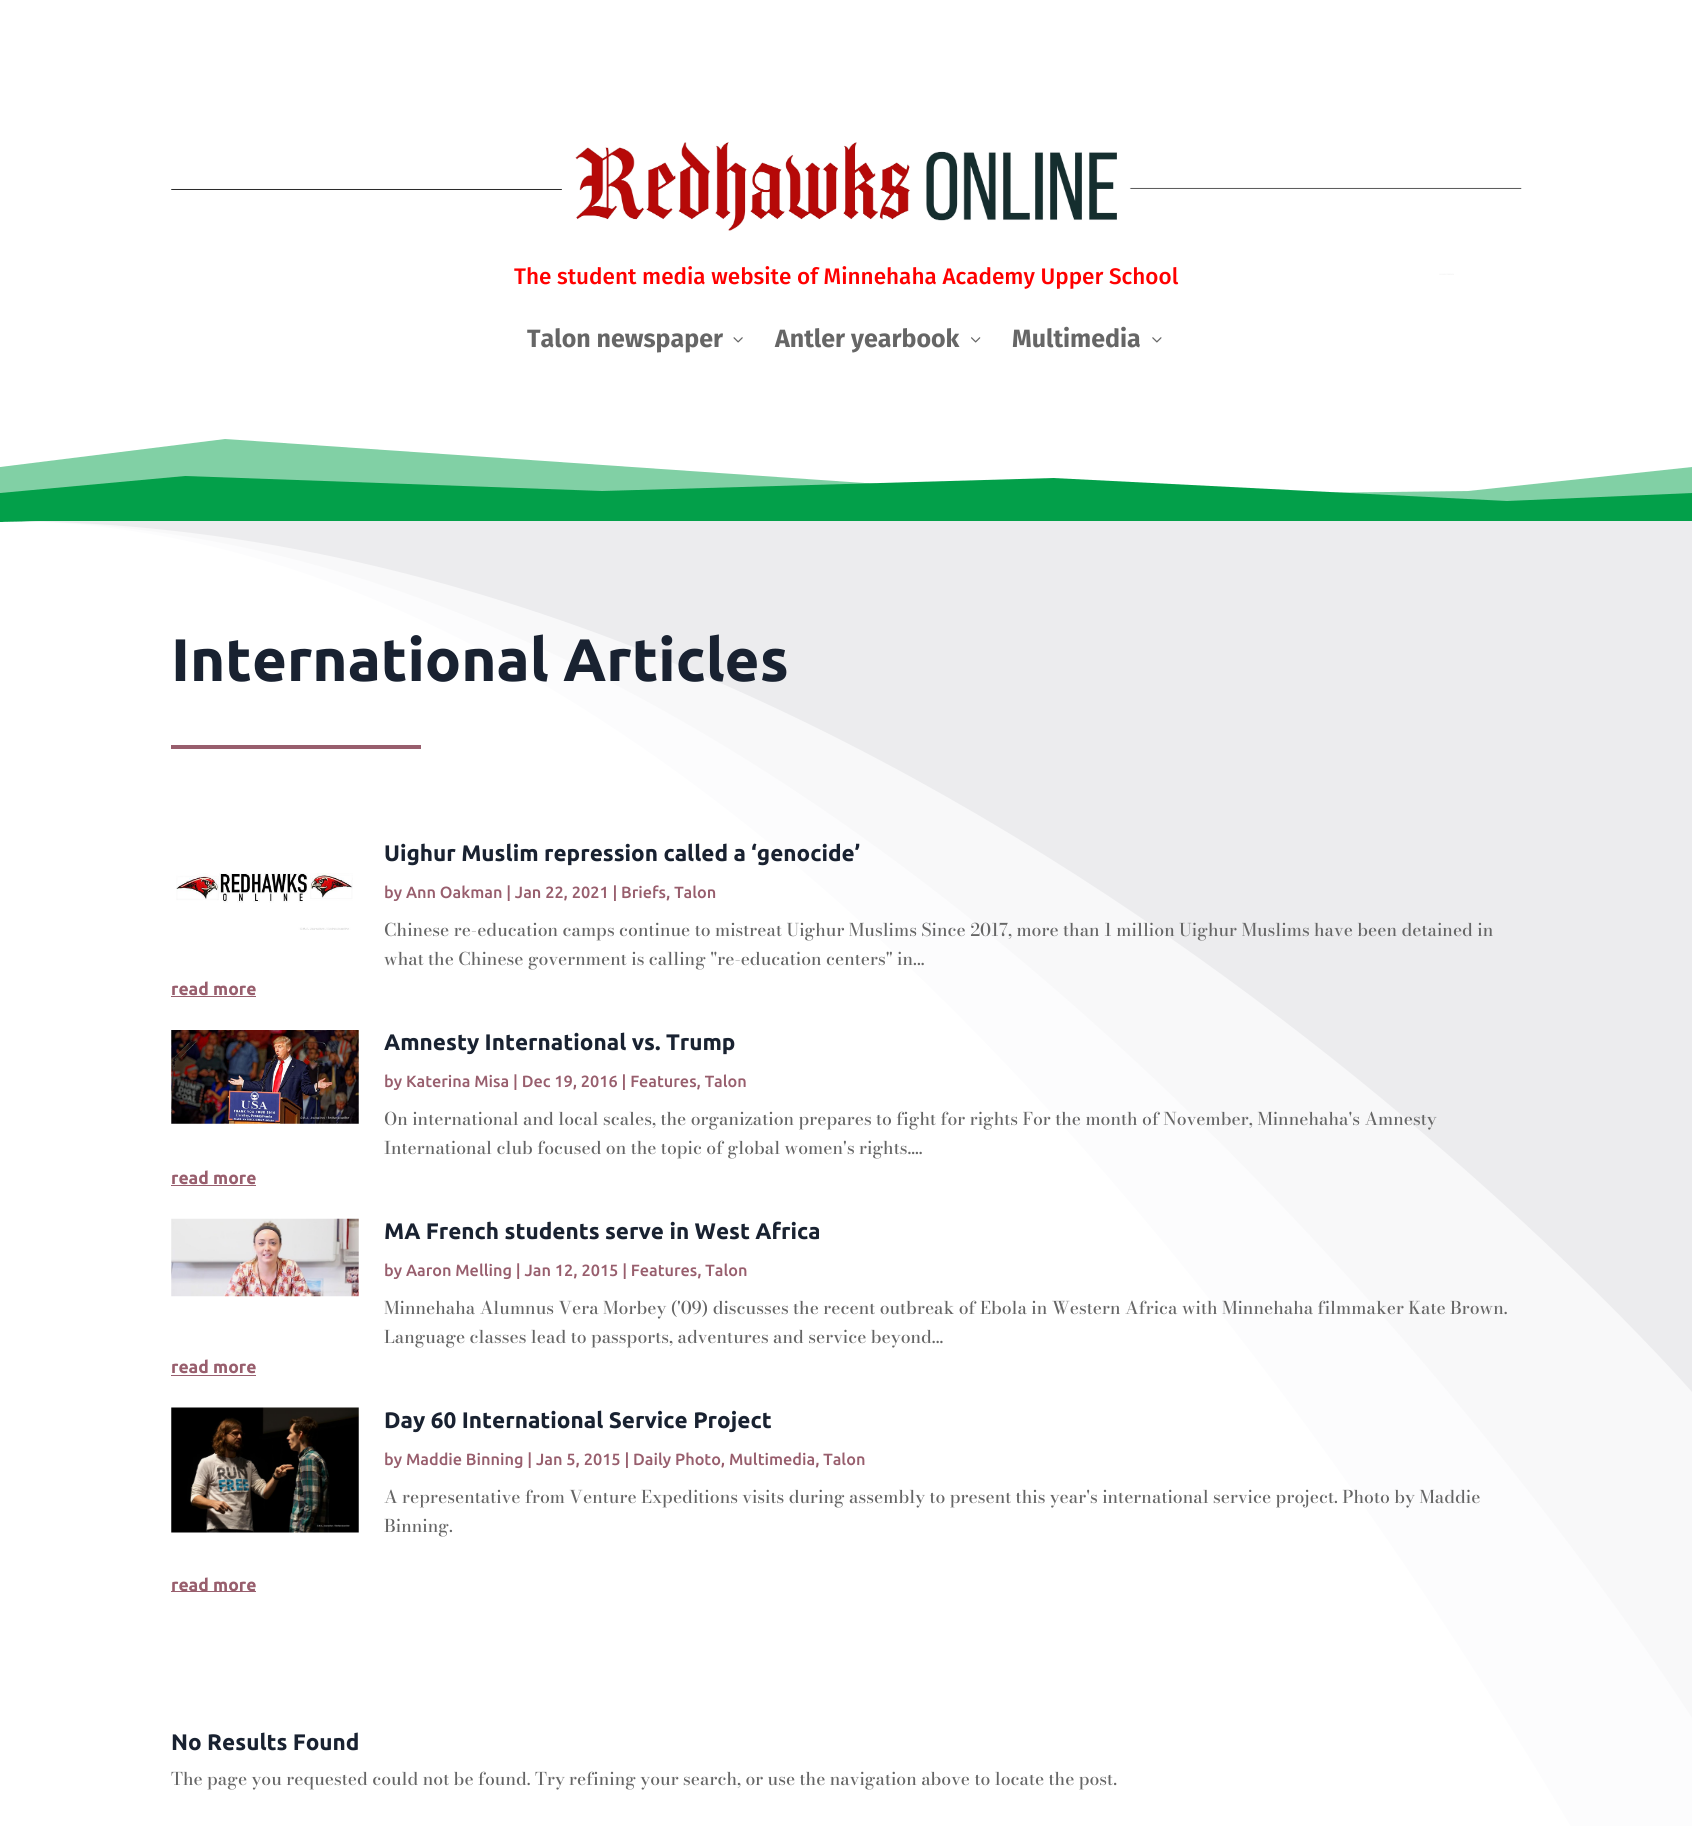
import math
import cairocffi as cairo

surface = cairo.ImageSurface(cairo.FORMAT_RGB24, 1692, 1826)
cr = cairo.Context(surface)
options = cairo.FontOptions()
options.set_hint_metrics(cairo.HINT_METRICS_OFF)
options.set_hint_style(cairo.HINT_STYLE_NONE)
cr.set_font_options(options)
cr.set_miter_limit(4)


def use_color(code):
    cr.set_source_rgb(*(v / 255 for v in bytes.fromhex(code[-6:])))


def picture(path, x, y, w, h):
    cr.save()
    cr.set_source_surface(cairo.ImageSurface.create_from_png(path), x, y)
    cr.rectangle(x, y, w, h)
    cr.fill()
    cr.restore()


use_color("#ffffff")
cr.paint()
use_color("#ffffff")
cr.rectangle(14, 521, 1678, 2)
cr.fill()
picture("img1.png", 171, 142, 1351, 133)
cr.select_font_face("Fira Sans Medium")
cr.set_font_size(22.5)
use_color("#ff0000")
cr.move_to(514, 284)
cr.show_text("The student media website of Minnehaha Academy Upper School")
cr.select_font_face("Fira Sans", cairo.FONT_SLANT_NORMAL, cairo.FONT_WEIGHT_BOLD)
cr.set_font_size(25)
use_color("#666666")
cr.move_to(527, 347)
cr.show_text("Talon newspaper")
picture("img2.png", 733, 337, 10, 6)
cr.move_to(775, 347)
cr.show_text("Antler yearbook")
picture("img3.png", 971, 337, 10, 6)
cr.move_to(1012, 347)
cr.show_text("Multimedia")
picture("img4.png", 1152, 337, 10, 6)
use_color("#81d0a5")
cr.new_path()
cr.move_to(0, 467)
cr.line_to(225, 439)
cr.line_to(1053, 496)
cr.line_to(1468, 491)
cr.line_to(1692, 467)
cr.line_to(1692, 522)
cr.line_to(0, 522)
cr.close_path()
cr.fill()
use_color("#03a04a")
cr.new_path()
cr.move_to(0, 493)
cr.line_to(185, 476)
cr.line_to(602, 491)
cr.line_to(1053, 478)
cr.line_to(1507, 501)
cr.line_to(1692, 493)
cr.line_to(1692, 522)
cr.line_to(0, 522)
cr.close_path()
cr.fill()
use_color("#fcfcfd")
cr.new_path()
cr.move_to(1692, 521)
cr.line_to(0, 521)
cr.curve_to(935, 521, 1692, 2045, 1692, 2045)
cr.close_path()
cr.fill()
use_color("#f8f8f9")
cr.new_path()
cr.move_to(1692, 521)
cr.line_to(0, 521)
cr.curve_to(935, 521, 1692, 1718, 1692, 1718)
cr.close_path()
cr.fill()
use_color("#ececee")
cr.new_path()
cr.move_to(1692, 521)
cr.line_to(0, 521)
cr.curve_to(935, 521, 1692, 1392, 1692, 1392)
cr.close_path()
cr.fill()
cr.select_font_face("Ubuntu", cairo.FONT_SLANT_NORMAL, cairo.FONT_WEIGHT_BOLD)
cr.set_font_size(60)
use_color("#192231")
cr.move_to(171, 681)
cr.show_text("International Articles")
use_color("#985e6d")
cr.rectangle(171, 745, 250, 4)
cr.fill()
cr.set_font_size(22.5)
use_color("#192231")
cr.move_to(384, 861)
cr.show_text("Uighur Muslim repression called a ‘genocide’")
picture("img5.png", 176, 873, 177, 57)
cr.select_font_face("Ubuntu Medium")
cr.set_font_size(16.25)
use_color("#985e6d")
cr.move_to(384, 898)
cr.show_text("by Ann Oakman | Jan 22, 2021 | Briefs, Talon")
cr.select_font_face("Bodoni Moda Medium")
cr.set_font_size(17.5)
use_color("#666666")
cr.move_to(384, 936)
cr.show_text("Chinese re-education camps continue to mistreat Uighur Muslims Since 2017, more than 1 million Uighur Muslims have been detained in")
cr.move_to(384, 965)
cr.show_text("what the Chinese government is calling \"re-education centers\" in...")
cr.select_font_face("Ubuntu", cairo.FONT_SLANT_NORMAL, cairo.FONT_WEIGHT_BOLD)
use_color("#985e6d")
cr.move_to(171, 995)
cr.show_text("read more")
cr.rectangle(171, 996, 85, 1)
cr.fill()
picture("img6.png", 171, 1030, 188, 94)
cr.set_font_size(22.5)
use_color("#192231")
cr.move_to(384, 1050)
cr.show_text("Amnesty International vs. Trump")
cr.select_font_face("Ubuntu Medium")
cr.set_font_size(16.25)
use_color("#985e6d")
cr.move_to(384, 1087)
cr.show_text("by Katerina Misa | Dec 19, 2016 | Features, Talon")
cr.select_font_face("Bodoni Moda Medium")
cr.set_font_size(17.5)
use_color("#666666")
cr.move_to(384, 1125)
cr.show_text("On international and local scales, the organization prepares to fight for rights For the month of November, Minnehaha's Amnesty")
cr.move_to(384, 1154)
cr.show_text("International club focused on the topic of global women's rights....")
cr.select_font_face("Ubuntu", cairo.FONT_SLANT_NORMAL, cairo.FONT_WEIGHT_BOLD)
use_color("#985e6d")
cr.move_to(171, 1184)
cr.show_text("read more")
cr.rectangle(171, 1185, 85, 1)
cr.fill()
picture("img7.png", 171, 1218, 188, 79)
cr.set_font_size(22.5)
use_color("#192231")
cr.move_to(384, 1239)
cr.show_text("MA French students serve in West Africa")
cr.select_font_face("Ubuntu Medium")
cr.set_font_size(16.25)
use_color("#985e6d")
cr.move_to(384, 1276)
cr.show_text("by Aaron Melling | Jan 12, 2015 | Features, Talon")
cr.select_font_face("Bodoni Moda Medium")
cr.set_font_size(17.5)
use_color("#666666")
cr.move_to(384, 1314)
cr.show_text("Minnehaha Alumnus Vera Morbey ('09) discusses the recent outbreak of Ebola in Western Africa with Minnehaha filmmaker Kate Brown.")
cr.move_to(384, 1343)
cr.show_text("Language classes lead to passports, adventures and service beyond...")
cr.select_font_face("Ubuntu", cairo.FONT_SLANT_NORMAL, cairo.FONT_WEIGHT_BOLD)
use_color("#985e6d")
cr.move_to(171, 1373)
cr.show_text("read more")
cr.rectangle(171, 1375, 85, 1)
cr.fill()
picture("img8.png", 171, 1407, 188, 126)
cr.set_font_size(22.5)
use_color("#192231")
cr.move_to(384, 1428)
cr.show_text("Day 60 International Service Project")
cr.select_font_face("Ubuntu Medium")
cr.set_font_size(16.25)
use_color("#985e6d")
cr.move_to(384, 1465)
cr.show_text("by Maddie Binning | Jan 5, 2015 | Daily Photo, Multimedia, Talon")
cr.select_font_face("Bodoni Moda Medium")
cr.set_font_size(17.5)
use_color("#666666")
cr.move_to(384, 1503)
cr.show_text("A representative from Venture Expeditions visits during assembly to present this year's international service project. Photo by Maddie")
cr.move_to(384, 1532)
cr.show_text("Binning.")
use_color("#985e6d")
cr.rectangle(171, 1591, 85, 1)
cr.fill()
cr.select_font_face("Ubuntu", cairo.FONT_SLANT_NORMAL, cairo.FONT_WEIGHT_BOLD)
cr.move_to(171, 1591)
cr.show_text("read more")
cr.set_font_size(22.5)
use_color("#192231")
cr.move_to(171, 1750)
cr.show_text("No Results Found")
cr.select_font_face("Bodoni Moda Medium")
cr.set_font_size(17.5)
use_color("#666666")
cr.move_to(171, 1785)
cr.show_text("The page you requested could not be found. Try refining your search, or use the navigation above to locate the post.")
surface.write_to_png("result.png")
